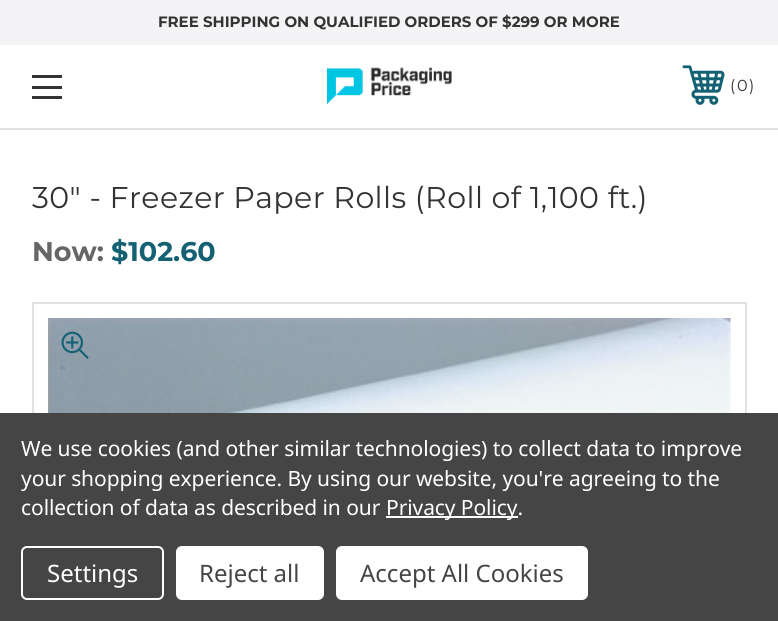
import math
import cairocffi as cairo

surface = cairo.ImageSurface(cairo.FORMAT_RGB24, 778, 621)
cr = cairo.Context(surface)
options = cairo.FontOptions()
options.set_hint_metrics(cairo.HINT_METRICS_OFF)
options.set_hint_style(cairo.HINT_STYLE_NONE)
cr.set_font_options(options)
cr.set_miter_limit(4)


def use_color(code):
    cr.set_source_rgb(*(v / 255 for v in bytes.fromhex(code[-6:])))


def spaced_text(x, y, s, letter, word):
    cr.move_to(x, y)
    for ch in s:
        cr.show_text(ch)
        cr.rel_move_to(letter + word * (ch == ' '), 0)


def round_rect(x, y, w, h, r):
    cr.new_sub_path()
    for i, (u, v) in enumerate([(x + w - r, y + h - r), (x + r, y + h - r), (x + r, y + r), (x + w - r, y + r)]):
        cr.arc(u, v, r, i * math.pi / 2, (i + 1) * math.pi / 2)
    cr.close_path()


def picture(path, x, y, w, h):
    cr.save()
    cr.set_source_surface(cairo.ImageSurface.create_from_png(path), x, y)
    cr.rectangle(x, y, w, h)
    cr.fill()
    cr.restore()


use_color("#ffffff")
cr.paint()
use_color("#f4f4f7")
cr.rectangle(0, 0, 778, 45)
cr.fill()
cr.select_font_face("Montserrat", cairo.FONT_SLANT_NORMAL, cairo.FONT_WEIGHT_BOLD)
cr.set_font_size(15)
use_color("#333333")
cr.move_to(158, 27)
cr.show_text("FREE SHIPPING ON QUALIFIED ORDERS OF $299 OR MORE")
use_color("#e1e1e1")
cr.rectangle(0, 128, 778, 2)
cr.fill()
use_color("#333333")
cr.rectangle(32, 86, 30, 3)
cr.fill()
cr.rectangle(32, 75, 30, 3)
cr.fill()
cr.rectangle(32, 96, 30, 3)
cr.fill()
picture("img1.png", 327, 67, 125, 38)
picture("img2.png", 682, 65, 43, 40)
cr.select_font_face("Montserrat")
cr.set_font_size(16)
cr.move_to(730, 91)
cr.show_text("(")
cr.move_to(737, 91)
cr.show_text("0")
cr.move_to(749, 91)
cr.show_text(")")
cr.set_font_size(30)
spaced_text(32, 208, "30\" - Freezer Paper Rolls (Roll of 1,100 ft.)", 0.4, 0)
cr.select_font_face("Montserrat", cairo.FONT_SLANT_NORMAL, cairo.FONT_WEIGHT_BOLD)
cr.set_font_size(27)
use_color("#666666")
cr.move_to(32, 261)
cr.show_text("Now:")
use_color("#136172")
cr.move_to(111, 261)
cr.show_text("$102.60")
cr.rectangle(33, 303, 713, 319)
use_color("#e1e1e1")
cr.stroke()
picture("img3.png", 48, 318, 683, 95)
picture("img4.png", 61, 331, 28, 28)
use_color("#454545")
cr.rectangle(0, 413, 778, 208)
cr.fill()
cr.select_font_face("Noto Sans")
cr.set_font_size(21)
use_color("#ffffff")
spaced_text(21, 456, "We use cookies (and other similar technologies) to collect data to improve", -0.08, 0)
spaced_text(21, 486, "your shopping experience. By using our website, you're agreeing to the", -0.08, 0)
spaced_text(21, 515, "collection of data as described in our", -0.08, 0)
cr.rectangle(386, 516, 132, 2)
cr.fill()
spaced_text(386, 515, "Privacy Policy.", -0.08, 0)
round_rect(22, 547, 141, 52, 5)
cr.stroke()
cr.set_font_size(24)
cr.move_to(47, 582)
cr.show_text("Settings")
round_rect(176, 546, 148, 54, 6)
cr.fill()
use_color("#454545")
cr.move_to(199, 582)
cr.show_text("Reject all")
use_color("#ffffff")
round_rect(336, 546, 252, 54, 6)
cr.fill()
use_color("#454545")
cr.move_to(360, 582)
cr.show_text("Accept All Cookies")
surface.write_to_png("result.png")
